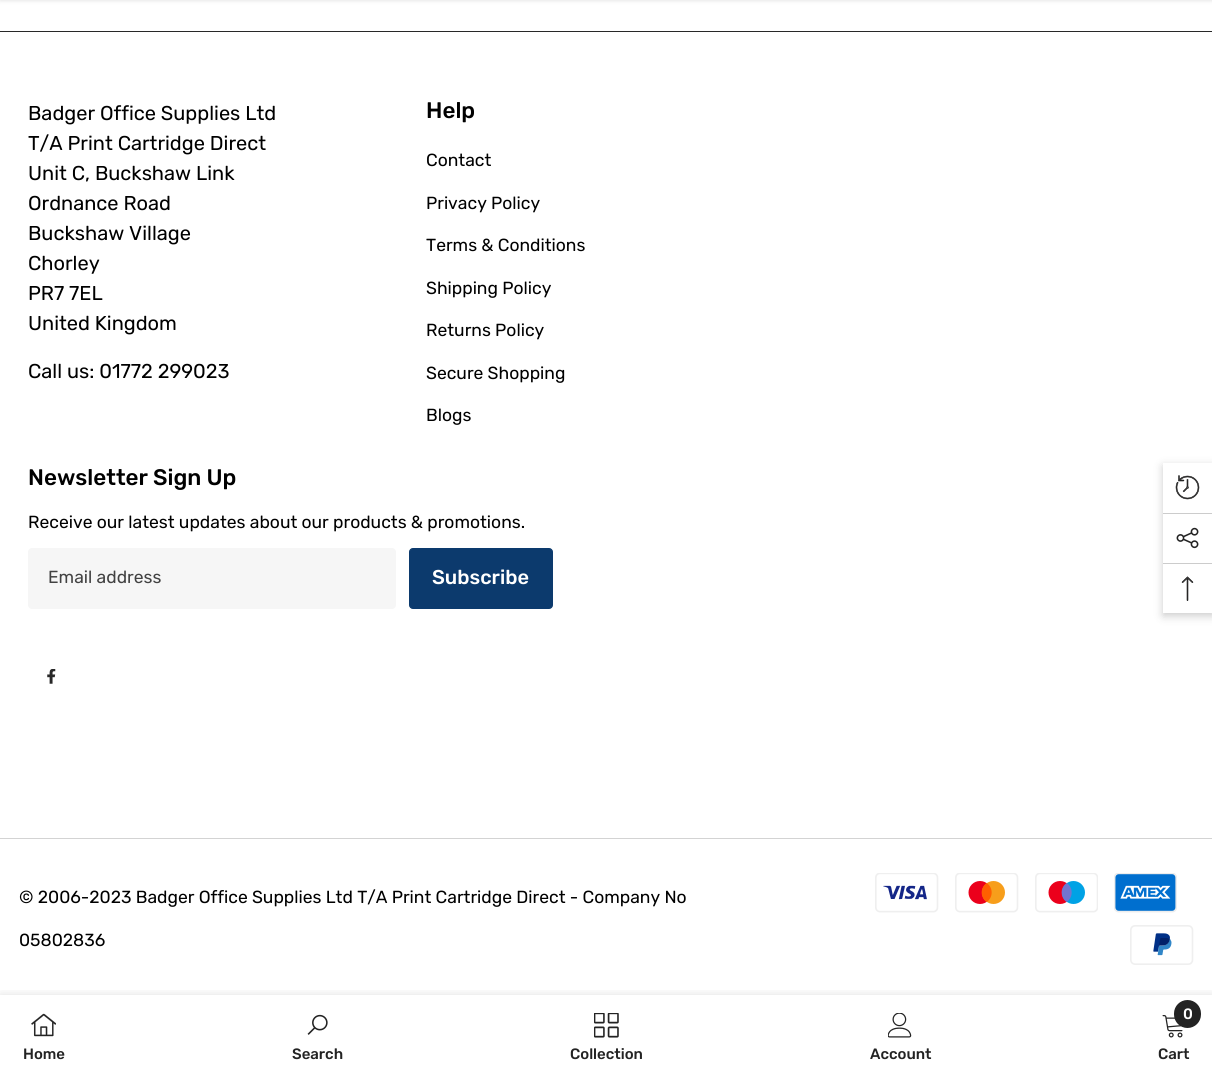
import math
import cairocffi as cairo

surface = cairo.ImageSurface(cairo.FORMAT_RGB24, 1212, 1075)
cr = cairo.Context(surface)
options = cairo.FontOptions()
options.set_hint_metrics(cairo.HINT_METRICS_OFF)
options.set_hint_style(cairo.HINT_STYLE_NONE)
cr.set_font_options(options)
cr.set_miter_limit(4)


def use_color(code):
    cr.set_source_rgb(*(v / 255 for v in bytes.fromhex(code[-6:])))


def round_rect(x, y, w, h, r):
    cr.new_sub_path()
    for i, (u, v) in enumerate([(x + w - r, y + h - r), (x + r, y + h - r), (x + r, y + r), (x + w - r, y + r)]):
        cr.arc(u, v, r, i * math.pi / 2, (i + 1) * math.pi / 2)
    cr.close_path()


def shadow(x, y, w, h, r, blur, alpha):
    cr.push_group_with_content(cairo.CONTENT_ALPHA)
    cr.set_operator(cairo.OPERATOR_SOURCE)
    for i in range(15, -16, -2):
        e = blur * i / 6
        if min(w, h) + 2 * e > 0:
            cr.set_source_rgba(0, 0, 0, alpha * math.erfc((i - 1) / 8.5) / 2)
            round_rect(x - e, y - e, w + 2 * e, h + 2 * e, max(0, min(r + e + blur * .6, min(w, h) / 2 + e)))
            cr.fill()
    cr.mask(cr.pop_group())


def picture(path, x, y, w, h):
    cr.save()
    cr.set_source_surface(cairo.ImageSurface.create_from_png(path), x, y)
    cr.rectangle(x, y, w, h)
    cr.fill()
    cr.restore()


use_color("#ffffff")
cr.paint()
use_color("#000000")
shadow(0, -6, 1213, 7, 0, 2, 0.1)
use_color("#282828")
cr.rectangle(0, 31, 1212, 1)
cr.fill()
cr.select_font_face("Rubik")
cr.set_font_size(20)
use_color("#000000")
cr.move_to(28, 120)
cr.show_text("Badger Office Supplies Ltd")
cr.move_to(28, 150)
cr.show_text("T/A Print Cartridge Direct")
cr.move_to(28, 180)
cr.show_text("Unit C, Buckshaw Link")
cr.move_to(28, 210)
cr.show_text("Ordnance Road")
cr.move_to(28, 240)
cr.show_text("Buckshaw Village")
cr.move_to(28, 270)
cr.show_text("Chorley")
cr.move_to(28, 300)
cr.show_text("PR7 7EL")
cr.move_to(28, 330)
cr.show_text("United Kingdom")
cr.move_to(28, 378)
cr.show_text("Call us: 01772 299023")
cr.select_font_face("Rubik Medium")
cr.set_font_size(22.5)
cr.move_to(426, 118)
cr.show_text("Help")
cr.select_font_face("Rubik")
cr.set_font_size(17.5)
cr.move_to(426, 166)
cr.show_text("Contact")
cr.move_to(426, 209)
cr.show_text("Privacy Policy")
cr.move_to(426, 251)
cr.show_text("Terms & Conditions")
cr.move_to(426, 294)
cr.show_text("Shipping Policy")
cr.move_to(426, 336)
cr.show_text("Returns Policy")
cr.move_to(426, 379)
cr.show_text("Secure Shopping")
cr.move_to(426, 421)
cr.show_text("Blogs")
cr.select_font_face("Rubik Medium")
cr.set_font_size(22.5)
cr.move_to(28, 485)
cr.show_text("Newsletter Sign Up")
cr.select_font_face("Rubik")
cr.set_font_size(17.5)
cr.move_to(28, 528)
cr.show_text("Receive our latest updates about our products & promotions.")
use_color("#f6f6f6")
round_rect(28, 548, 368, 61, 4)
cr.fill()
use_color("#424242")
cr.move_to(48, 583)
cr.show_text("Email address")
use_color("#0c3a6d")
round_rect(409.5, 548.5, 143, 60, 3.5)
cr.fill_preserve()
cr.set_line_width(1)
cr.stroke()
cr.select_font_face("Rubik Medium")
cr.set_font_size(20)
use_color("#ffffff")
cr.move_to(432, 584)
cr.show_text("Subscribe")
picture("img1.png", 47, 669, 9, 15)
use_color("#d3d3d3")
cr.rectangle(0, 838, 1212, 1)
cr.fill()
cr.select_font_face("Rubik")
cr.set_font_size(17.5)
use_color("#000000")
cr.move_to(19, 903)
cr.show_text("© 2006-2023 Badger Office Supplies Ltd T/A Print Cartridge Direct - Company No")
cr.move_to(19, 946)
cr.show_text("05802836")
picture("img2.png", 875, 873, 64, 40)
picture("img3.png", 955, 873, 64, 40)
picture("img4.png", 1035, 873, 63, 40)
picture("img5.png", 1114, 873, 63, 40)
picture("img6.png", 1130, 925, 64, 40)
cr.save()
cr.rectangle(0, 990, 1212, 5)
cr.clip()
use_color("#000000")
shadow(0, 995, 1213, 80, 0, 5.5, 0.12)
cr.restore()
picture("img7.png", 31, 1013, 25, 24)
cr.select_font_face("Rubik Medium")
cr.set_font_size(15)
use_color("#232323")
cr.move_to(23, 1059)
cr.show_text("Home")
picture("img8.png", 307, 1014, 21, 21)
cr.move_to(292, 1059)
cr.show_text("Search")
picture("img9.png", 594, 1013, 25, 25)
cr.move_to(570, 1059)
cr.show_text("Collection")
picture("img10.png", 888, 1013, 24, 25)
cr.move_to(870, 1059)
cr.show_text("Account")
picture("img11.png", 1162, 1015, 21, 23)
round_rect(1174, 1000, 27, 28, 13.5)
cr.fill()
use_color("#ffffff")
cr.move_to(1183, 1019)
cr.show_text("0")
use_color("#232323")
cr.move_to(1158, 1059)
cr.show_text("Cart")
use_color("#000000")
shadow(1163, 466, 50, 150, 0, 4.5, 0.2)
use_color("#ffffff")
cr.rectangle(1163, 463, 49, 150)
cr.fill()
picture("img12.png", 1175, 475, 25, 25)
use_color("#cccccc")
cr.rectangle(1163, 513, 49, 1)
cr.fill()
picture("img13.png", 1176, 527, 23, 22)
cr.rectangle(1163, 563, 49, 1)
cr.fill()
picture("img14.png", 1181, 576, 13, 25)
surface.write_to_png("result.png")
